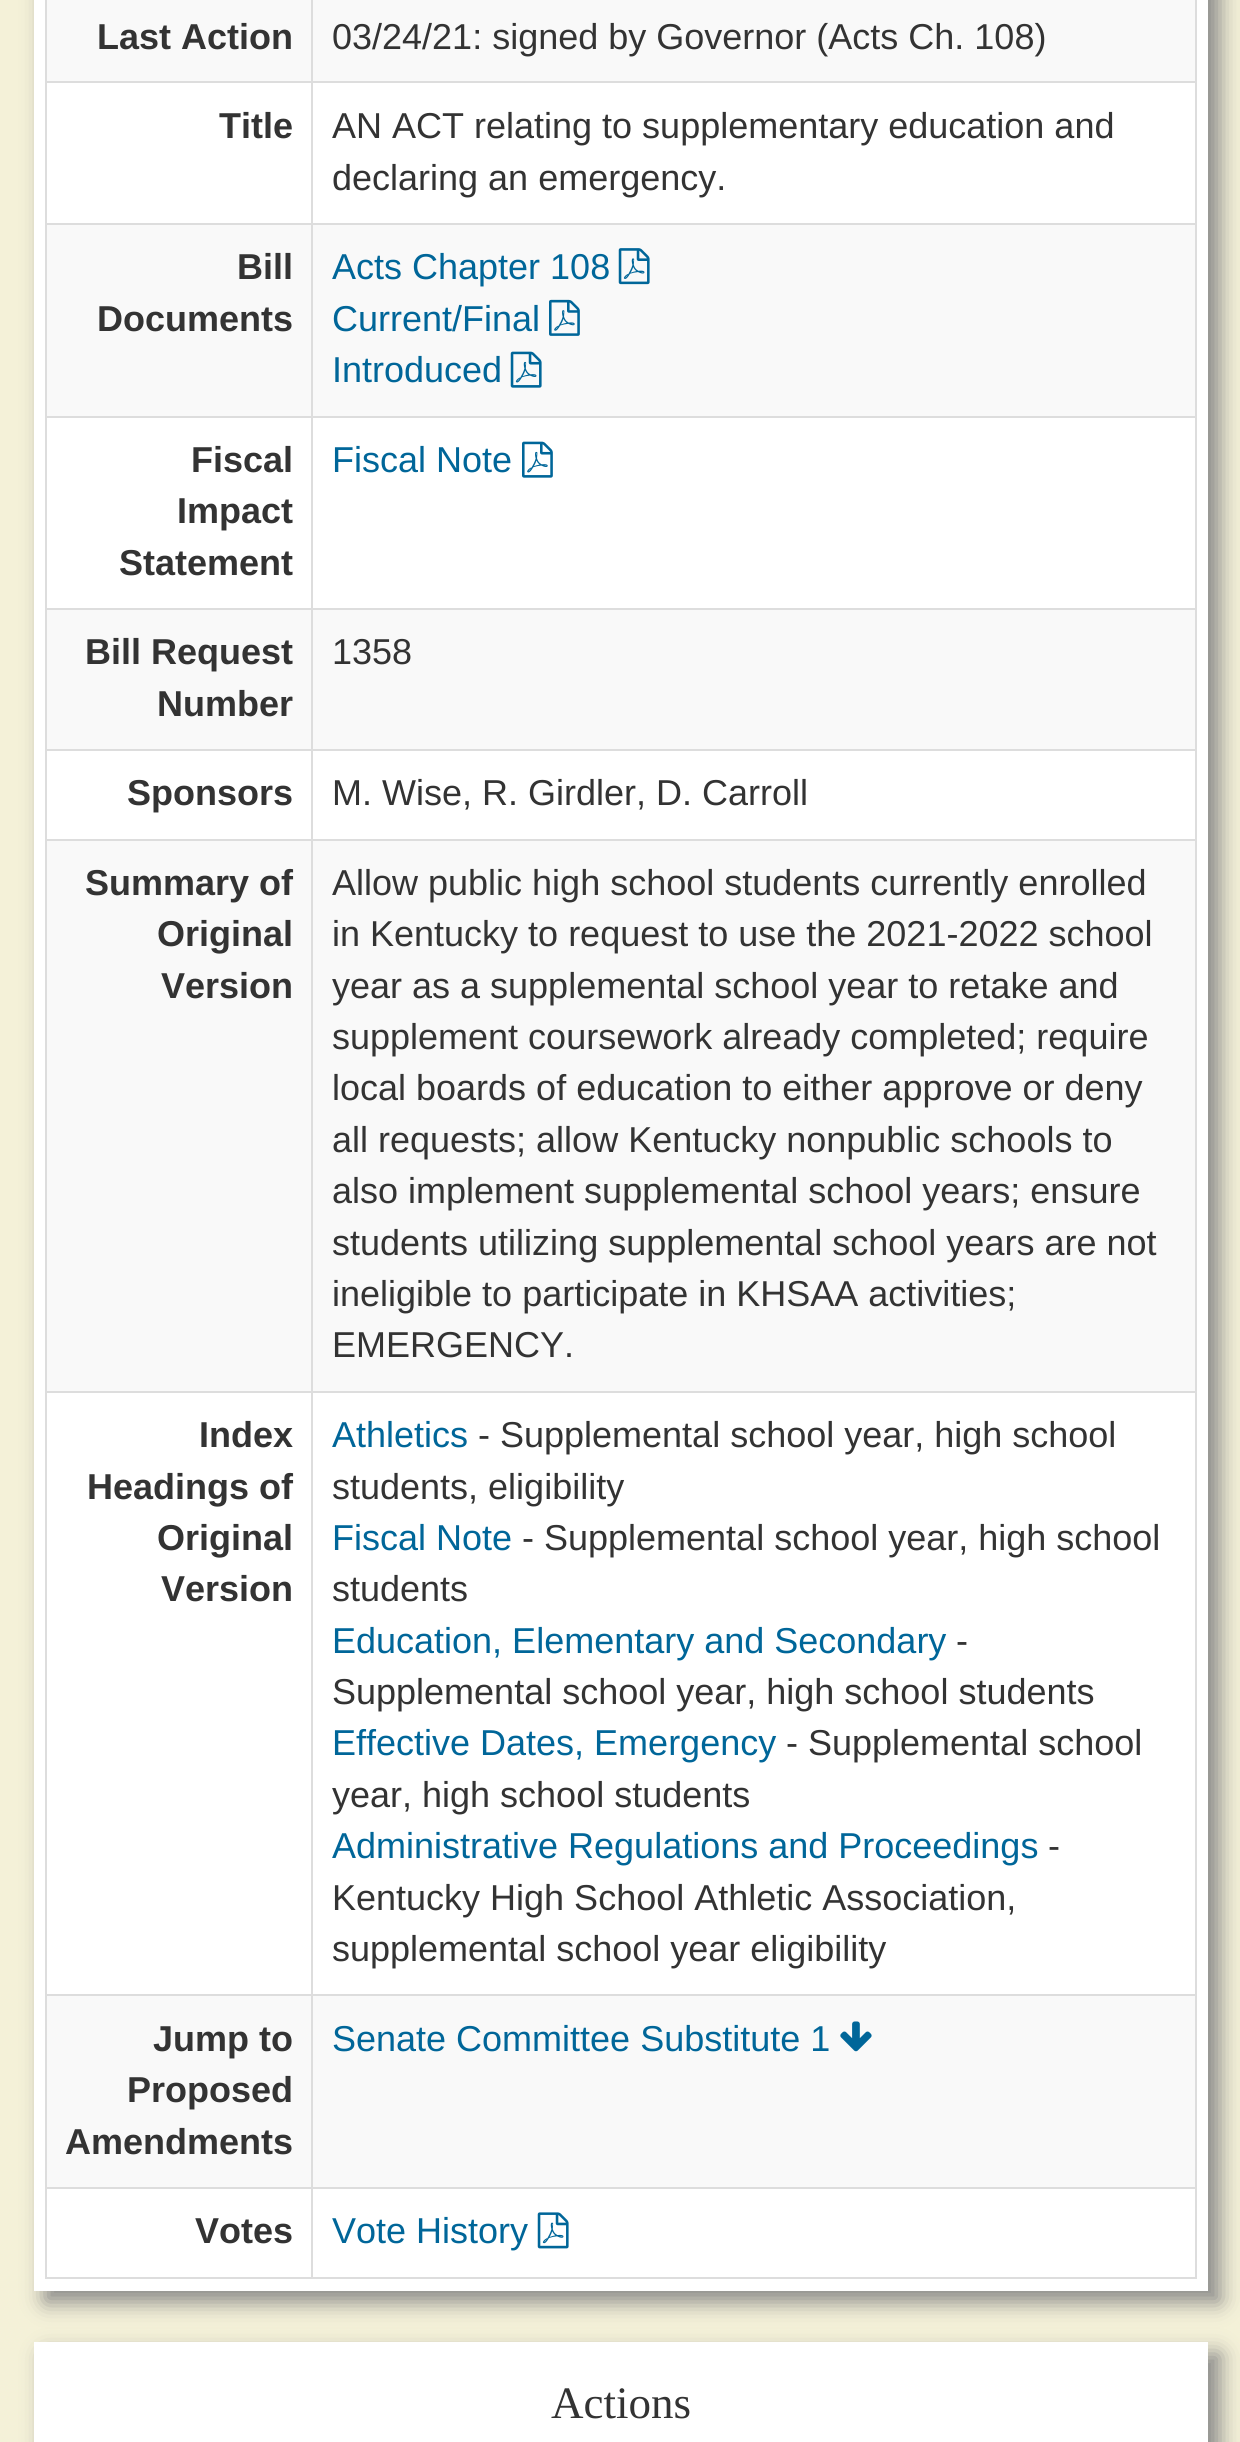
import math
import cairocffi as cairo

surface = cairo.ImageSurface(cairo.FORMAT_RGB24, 1240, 2442)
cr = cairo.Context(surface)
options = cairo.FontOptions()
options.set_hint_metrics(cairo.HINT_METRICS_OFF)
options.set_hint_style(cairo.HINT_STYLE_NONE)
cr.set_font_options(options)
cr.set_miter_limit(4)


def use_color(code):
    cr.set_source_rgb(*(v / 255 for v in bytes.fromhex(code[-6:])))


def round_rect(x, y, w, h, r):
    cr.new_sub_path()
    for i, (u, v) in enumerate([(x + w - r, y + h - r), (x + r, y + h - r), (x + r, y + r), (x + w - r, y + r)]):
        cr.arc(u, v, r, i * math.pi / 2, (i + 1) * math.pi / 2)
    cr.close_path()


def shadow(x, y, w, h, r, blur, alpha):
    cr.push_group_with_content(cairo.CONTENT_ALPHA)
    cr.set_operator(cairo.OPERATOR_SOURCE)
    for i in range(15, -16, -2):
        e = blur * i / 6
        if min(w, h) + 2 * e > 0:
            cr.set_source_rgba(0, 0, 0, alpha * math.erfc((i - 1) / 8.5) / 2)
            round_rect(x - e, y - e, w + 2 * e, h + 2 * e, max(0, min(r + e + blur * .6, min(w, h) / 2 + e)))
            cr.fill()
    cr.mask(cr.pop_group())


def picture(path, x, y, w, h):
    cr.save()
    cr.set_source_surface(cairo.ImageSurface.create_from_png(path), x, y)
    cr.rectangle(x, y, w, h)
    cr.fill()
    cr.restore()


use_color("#f4f1d8")
cr.paint()
use_color("#888888")
shadow(45, -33, 1175, 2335, 0, 11, 1)
use_color("#ffffff")
cr.rectangle(34, 0, 1174, 2291)
cr.fill()
use_color("#dddddd")
cr.rectangle(1195, 0, 2, 2279)
cr.fill()
cr.rectangle(45, 2277, 1152, 2)
cr.fill()
cr.rectangle(45, 0, 2, 2279)
cr.fill()
use_color("#f9f9f9")
cr.rectangle(47, 0, 1148, 81)
cr.fill()
cr.select_font_face("Liberation Sans", cairo.FONT_SLANT_NORMAL, cairo.FONT_WEIGHT_BOLD)
cr.set_font_size(36)
use_color("#333333")
cr.move_to(97, 49)
cr.show_text("Last Action")
use_color("#dddddd")
cr.rectangle(311, 81, 886, 2)
cr.fill()
cr.rectangle(311, 223, 886, 2)
cr.fill()
use_color("#f9f9f9")
cr.rectangle(47, 225, 1148, 191)
cr.fill()
use_color("#dddddd")
cr.rectangle(311, 416, 886, 2)
cr.fill()
cr.rectangle(311, 608, 886, 2)
cr.fill()
use_color("#f9f9f9")
cr.rectangle(47, 610, 1148, 139)
cr.fill()
use_color("#dddddd")
cr.rectangle(311, 749, 886, 2)
cr.fill()
use_color("#f9f9f9")
cr.rectangle(47, 841, 1148, 550)
cr.fill()
use_color("#dddddd")
cr.rectangle(311, 839, 886, 2)
cr.fill()
cr.rectangle(311, 1391, 886, 2)
cr.fill()
cr.rectangle(311, 1994, 886, 2)
cr.fill()
use_color("#f9f9f9")
cr.rectangle(47, 1996, 1148, 191)
cr.fill()
use_color("#dddddd")
cr.rectangle(311, 2187, 886, 2)
cr.fill()
cr.rectangle(311, 2187, 2, 92)
cr.fill()
cr.rectangle(45, 2187, 268, 2)
cr.fill()
cr.rectangle(311, 1994, 2, 195)
cr.fill()
cr.rectangle(45, 1994, 268, 2)
cr.fill()
cr.rectangle(311, 1391, 2, 605)
cr.fill()
cr.rectangle(45, 1391, 268, 2)
cr.fill()
cr.rectangle(311, 839, 2, 554)
cr.fill()
cr.rectangle(45, 839, 268, 2)
cr.fill()
cr.rectangle(311, 749, 2, 93)
cr.fill()
cr.rectangle(45, 749, 268, 2)
cr.fill()
cr.rectangle(311, 608, 2, 144)
cr.fill()
cr.rectangle(45, 608, 268, 2)
cr.fill()
cr.rectangle(311, 416, 2, 194)
cr.fill()
cr.rectangle(45, 416, 268, 2)
cr.fill()
cr.rectangle(311, 223, 2, 196)
cr.fill()
cr.rectangle(45, 223, 268, 2)
cr.fill()
cr.rectangle(311, 81, 2, 144)
cr.fill()
cr.rectangle(45, 81, 268, 2)
cr.fill()
cr.rectangle(311, 0, 2, 83)
cr.fill()
cr.select_font_face("Liberation Sans")
use_color("#333333")
cr.move_to(332, 49)
cr.show_text("03/24/21: signed by Governor (Acts Ch. 108)")
cr.select_font_face("Liberation Sans", cairo.FONT_SLANT_NORMAL, cairo.FONT_WEIGHT_BOLD)
cr.move_to(219, 138)
cr.show_text("Title")
cr.select_font_face("Liberation Sans")
cr.move_to(332, 138)
cr.show_text("AN ACT relating to supplementary education and")
cr.move_to(332, 190)
cr.show_text("declaring an emergency.")
cr.select_font_face("Liberation Sans", cairo.FONT_SLANT_NORMAL, cairo.FONT_WEIGHT_BOLD)
cr.move_to(237, 279)
cr.show_text("Bill")
cr.move_to(97, 331)
cr.show_text("Documents")
cr.select_font_face("Liberation Sans")
use_color("#006699")
cr.move_to(332, 279)
cr.show_text("Acts Chapter 108")
picture("img1.png", 618, 248, 32, 37)
cr.move_to(332, 331)
cr.show_text("Current/Final")
picture("img2.png", 549, 299, 31, 37)
cr.move_to(332, 382)
cr.show_text("Introduced")
picture("img3.png", 510, 351, 32, 37)
cr.select_font_face("Liberation Sans", cairo.FONT_SLANT_NORMAL, cairo.FONT_WEIGHT_BOLD)
use_color("#333333")
cr.move_to(191, 472)
cr.show_text("Fiscal")
cr.move_to(177, 523)
cr.show_text("Impact")
cr.move_to(119, 575)
cr.show_text("Statement")
cr.select_font_face("Liberation Sans")
use_color("#006699")
cr.move_to(332, 472)
cr.show_text("Fiscal Note")
picture("img4.png", 522, 441, 31, 37)
cr.select_font_face("Liberation Sans", cairo.FONT_SLANT_NORMAL, cairo.FONT_WEIGHT_BOLD)
use_color("#333333")
cr.move_to(85, 664)
cr.show_text("Bill Request")
cr.move_to(157, 716)
cr.show_text("Number")
cr.select_font_face("Liberation Sans")
cr.move_to(332, 664)
cr.show_text("1358")
cr.select_font_face("Liberation Sans", cairo.FONT_SLANT_NORMAL, cairo.FONT_WEIGHT_BOLD)
cr.move_to(127, 805)
cr.show_text("Sponsors")
cr.select_font_face("Liberation Sans")
cr.move_to(332, 805)
cr.show_text("M. Wise, R. Girdler, D. Carroll")
cr.select_font_face("Liberation Sans", cairo.FONT_SLANT_NORMAL, cairo.FONT_WEIGHT_BOLD)
cr.move_to(85, 895)
cr.show_text("Summary of")
cr.move_to(157, 946)
cr.show_text("Original")
cr.move_to(161, 998)
cr.show_text("Version")
cr.select_font_face("Liberation Sans")
cr.move_to(332, 895)
cr.show_text("Allow public high school students currently enrolled")
cr.move_to(332, 946)
cr.show_text("in Kentucky to request to use the 2021-2022 school")
cr.move_to(332, 998)
cr.show_text("year as a supplemental school year to retake and")
cr.move_to(332, 1049)
cr.show_text("supplement coursework already completed; require")
cr.move_to(332, 1100)
cr.show_text("local boards of education to either approve or deny")
cr.move_to(332, 1152)
cr.show_text("all requests; allow Kentucky nonpublic schools to")
cr.move_to(332, 1203)
cr.show_text("also implement supplemental school years; ensure")
cr.move_to(332, 1255)
cr.show_text("students utilizing supplemental school years are not")
cr.move_to(332, 1306)
cr.show_text("ineligible to participate in KHSAA activities;")
cr.move_to(332, 1357)
cr.show_text("EMERGENCY.")
cr.select_font_face("Liberation Sans", cairo.FONT_SLANT_NORMAL, cairo.FONT_WEIGHT_BOLD)
cr.move_to(199, 1447)
cr.show_text("Index")
cr.move_to(87, 1499)
cr.show_text("Headings of")
cr.move_to(157, 1550)
cr.show_text("Original")
cr.move_to(161, 1601)
cr.show_text("Version")
cr.select_font_face("Liberation Sans")
use_color("#006699")
cr.move_to(332, 1447)
cr.show_text("Athletics")
use_color("#333333")
cr.move_to(478, 1447)
cr.show_text("- Supplemental school year, high school")
cr.move_to(332, 1499)
cr.show_text("students, eligibility")
use_color("#006699")
cr.move_to(332, 1550)
cr.show_text("Fiscal Note")
use_color("#333333")
cr.move_to(522, 1550)
cr.show_text("- Supplemental school year, high school")
cr.move_to(332, 1601)
cr.show_text("students")
use_color("#006699")
cr.move_to(332, 1653)
cr.show_text("Education, Elementary and Secondary")
use_color("#333333")
cr.move_to(956, 1653)
cr.show_text("-")
cr.move_to(332, 1704)
cr.show_text("Supplemental school year, high school students")
use_color("#006699")
cr.move_to(332, 1755)
cr.show_text("Effective Dates, Emergency")
use_color("#333333")
cr.move_to(786, 1755)
cr.show_text("- Supplemental school")
cr.move_to(332, 1807)
cr.show_text("year, high school students")
use_color("#006699")
cr.move_to(332, 1858)
cr.show_text("Administrative Regulations and Proceedings")
use_color("#333333")
cr.move_to(1048, 1858)
cr.show_text("-")
cr.move_to(332, 1910)
cr.show_text("Kentucky High School Athletic Association,")
cr.move_to(332, 1961)
cr.show_text("supplemental school year eligibility")
cr.select_font_face("Liberation Sans", cairo.FONT_SLANT_NORMAL, cairo.FONT_WEIGHT_BOLD)
cr.move_to(153, 2051)
cr.show_text("Jump to")
cr.move_to(127, 2102)
cr.show_text("Proposed")
cr.move_to(65, 2154)
cr.show_text("Amendments")
cr.select_font_face("Liberation Sans")
use_color("#006699")
cr.move_to(332, 2051)
cr.show_text("Senate Committee Substitute 1")
picture("img5.png", 840, 2021, 32, 31)
cr.select_font_face("Liberation Sans", cairo.FONT_SLANT_NORMAL, cairo.FONT_WEIGHT_BOLD)
use_color("#333333")
cr.move_to(195, 2243)
cr.show_text("Votes")
cr.select_font_face("Liberation Sans")
use_color("#006699")
cr.move_to(332, 2243)
cr.show_text("Vote History")
picture("img6.png", 537, 2212, 32, 37)
use_color("#888888")
shadow(45, 2354, 1175, 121, 0, 11, 1)
use_color("#ffffff")
cr.rectangle(34, 2342, 1174, 100)
cr.fill()
cr.select_font_face("Liberation Serif")
cr.set_font_size(45)
use_color("#333333")
cr.move_to(551, 2418)
cr.show_text("Actions")
surface.write_to_png("result.png")
